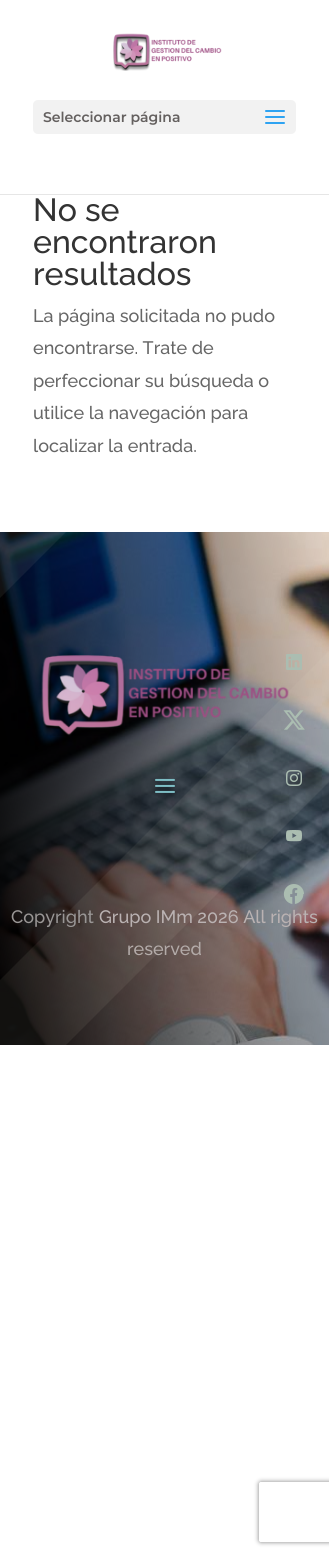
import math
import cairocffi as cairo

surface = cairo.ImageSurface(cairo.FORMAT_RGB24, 329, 1556)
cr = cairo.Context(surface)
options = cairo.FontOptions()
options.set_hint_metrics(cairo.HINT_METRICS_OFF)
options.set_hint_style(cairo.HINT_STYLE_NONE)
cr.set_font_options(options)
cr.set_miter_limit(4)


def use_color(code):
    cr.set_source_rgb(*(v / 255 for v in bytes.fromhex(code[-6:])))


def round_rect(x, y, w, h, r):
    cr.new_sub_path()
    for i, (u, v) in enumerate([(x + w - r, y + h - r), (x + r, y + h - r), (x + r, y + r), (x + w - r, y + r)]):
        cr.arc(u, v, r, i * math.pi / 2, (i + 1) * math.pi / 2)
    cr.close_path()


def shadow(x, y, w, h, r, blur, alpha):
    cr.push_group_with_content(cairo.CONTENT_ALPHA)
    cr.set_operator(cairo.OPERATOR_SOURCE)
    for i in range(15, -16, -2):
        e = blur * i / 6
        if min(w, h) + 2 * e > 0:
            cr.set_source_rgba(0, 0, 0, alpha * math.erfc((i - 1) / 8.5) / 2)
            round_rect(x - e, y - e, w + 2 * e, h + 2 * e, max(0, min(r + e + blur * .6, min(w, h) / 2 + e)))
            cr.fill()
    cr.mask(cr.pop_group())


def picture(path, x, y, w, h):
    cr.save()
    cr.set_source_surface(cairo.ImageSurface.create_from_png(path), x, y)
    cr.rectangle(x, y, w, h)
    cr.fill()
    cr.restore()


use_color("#ffffff")
cr.paint()
use_color("#e6e6e6")
cr.rectangle(0, 194, 329, 1)
cr.fill()
picture("img1.png", 113, 33, 109, 38)
use_color("#f2f2f2")
round_rect(33, 100, 263, 34, 5)
cr.fill()
cr.select_font_face("Montserrat SemiBold")
cr.set_font_size(14)
use_color("#64605f")
cr.move_to(43, 122)
cr.show_text("Seleccionar página")
picture("img2.png", 265, 110, 20, 14)
cr.select_font_face("Raleway Medium")
cr.set_font_size(32)
use_color("#333333")
cr.move_to(33, 221)
cr.show_text("No se")
cr.move_to(33, 253)
cr.show_text("encontraron")
cr.move_to(33, 285)
cr.show_text("resultados")
cr.set_font_size(18)
use_color("#666666")
cr.move_to(33, 322)
cr.show_text("La página solicitada no pudo")
cr.move_to(33, 354)
cr.show_text("encontrarse. Trate de")
cr.move_to(33, 387)
cr.show_text("perfeccionar su búsqueda o")
cr.move_to(33, 419)
cr.show_text("utilice la navegación para")
cr.move_to(33, 452)
cr.show_text("localizar la entrada.")
picture("img3.png", 0, 532, 329, 513)
picture("img6.png", 286, 654, 16, 16)
picture("img7.png", 283, 710, 22, 20)
picture("img4.png", 41, 655, 248, 81)
picture("img5.png", 155, 778, 20, 15)
picture("img8.png", 286, 770, 16, 16)
picture("img9.png", 286, 830, 16, 12)
picture("img10.png", 283, 884, 21, 20)
use_color("#999695")
cr.move_to(11, 923)
cr.show_text("Copyright")
use_color("#bab2b2")
cr.move_to(99, 923)
cr.show_text("Grupo IMm 2026 All rights")
use_color("#b3aba9")
cr.move_to(127, 955)
cr.show_text("reserved")
cr.save()
cr.set_fill_rule(cairo.FILL_RULE_EVEN_ODD)
cr.new_path()
cr.move_to(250, 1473)
cr.line_to(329, 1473)
cr.line_to(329, 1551)
cr.line_to(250, 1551)
cr.close_path()
cr.move_to(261, 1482)
cr.line_to(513, 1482)
cr.curve_to(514, 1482, 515, 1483, 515, 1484)
cr.line_to(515, 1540)
cr.curve_to(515, 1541, 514, 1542, 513, 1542)
cr.line_to(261, 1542)
cr.curve_to(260, 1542, 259, 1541, 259, 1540)
cr.line_to(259, 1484)
cr.curve_to(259, 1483, 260, 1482, 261, 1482)
cr.close_path()
cr.clip()
use_color("#808080")
shadow(259, 1482, 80, 60, 2, 2.5, 1)
cr.restore()
surface.write_to_png("result.png")
